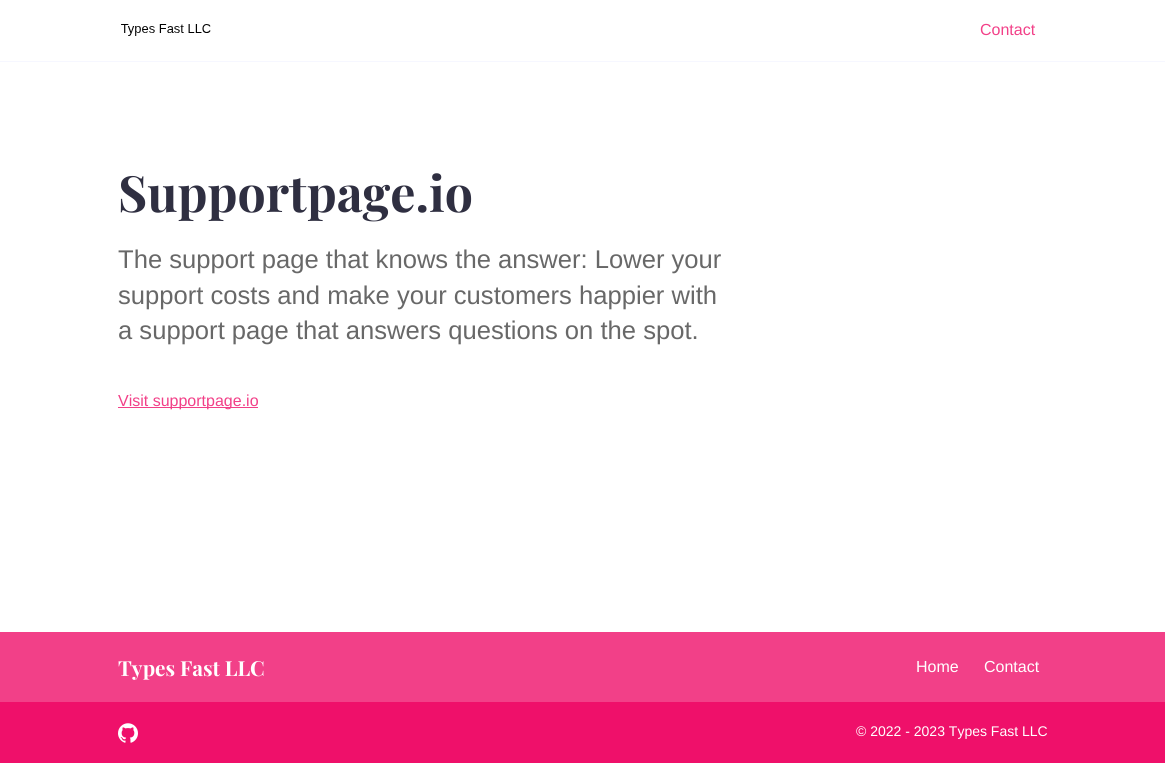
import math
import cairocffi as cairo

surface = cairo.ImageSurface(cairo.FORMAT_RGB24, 1165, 763)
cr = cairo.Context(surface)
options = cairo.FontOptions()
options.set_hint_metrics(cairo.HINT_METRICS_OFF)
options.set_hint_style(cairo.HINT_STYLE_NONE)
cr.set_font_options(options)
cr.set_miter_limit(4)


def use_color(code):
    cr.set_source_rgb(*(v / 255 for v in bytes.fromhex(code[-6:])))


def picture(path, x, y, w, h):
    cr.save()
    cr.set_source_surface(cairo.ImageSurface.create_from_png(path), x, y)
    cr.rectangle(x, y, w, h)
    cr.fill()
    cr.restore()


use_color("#ffffff")
cr.paint()
use_color("#f6f7ff")
cr.rectangle(0, 61, 1165, 1)
cr.fill()
picture("img1.png", 121, 24, 90, 12)
cr.select_font_face("Liberation Sans")
cr.set_font_size(16)
use_color("#f24088")
cr.move_to(980, 35)
cr.show_text("Contact")
cr.select_font_face("Playfair Display", cairo.FONT_SLANT_NORMAL, cairo.FONT_WEIGHT_BOLD)
cr.set_font_size(50)
use_color("#2f2f41")
cr.move_to(118, 212)
cr.show_text("Supportpage.io")
cr.select_font_face("Liberation Sans")
cr.set_font_size(25.6)
use_color("#686868")
cr.move_to(118, 268)
cr.show_text("The support page that knows the answer: Lower your")
cr.move_to(118, 304)
cr.show_text("support costs and make your customers happier with")
cr.move_to(118, 339)
cr.show_text("a support page that answers questions on the spot.")
use_color("#f24088")
cr.rectangle(118, 407, 140, 1)
cr.fill()
cr.set_font_size(16)
cr.move_to(118, 406)
cr.show_text("Visit supportpage.io")
cr.rectangle(0, 632, 1165, 70)
cr.fill()
cr.select_font_face("Playfair Display", cairo.FONT_SLANT_NORMAL, cairo.FONT_WEIGHT_BOLD)
cr.set_font_size(20.75)
use_color("#ffffff")
cr.move_to(118, 676)
cr.show_text("Types Fast LLC")
cr.select_font_face("Liberation Sans")
cr.set_font_size(16)
cr.move_to(916, 672)
cr.show_text("Home")
cr.move_to(984, 672)
cr.show_text("Contact")
use_color("#ef106a")
cr.rectangle(0, 702, 1165, 61)
cr.fill()
picture("img2.png", 118, 723, 20, 20)
cr.set_font_size(14)
use_color("#ffffff")
cr.move_to(856, 736)
cr.show_text("© 2022 - 2023 Types Fast LLC")
surface.write_to_png("result.png")
